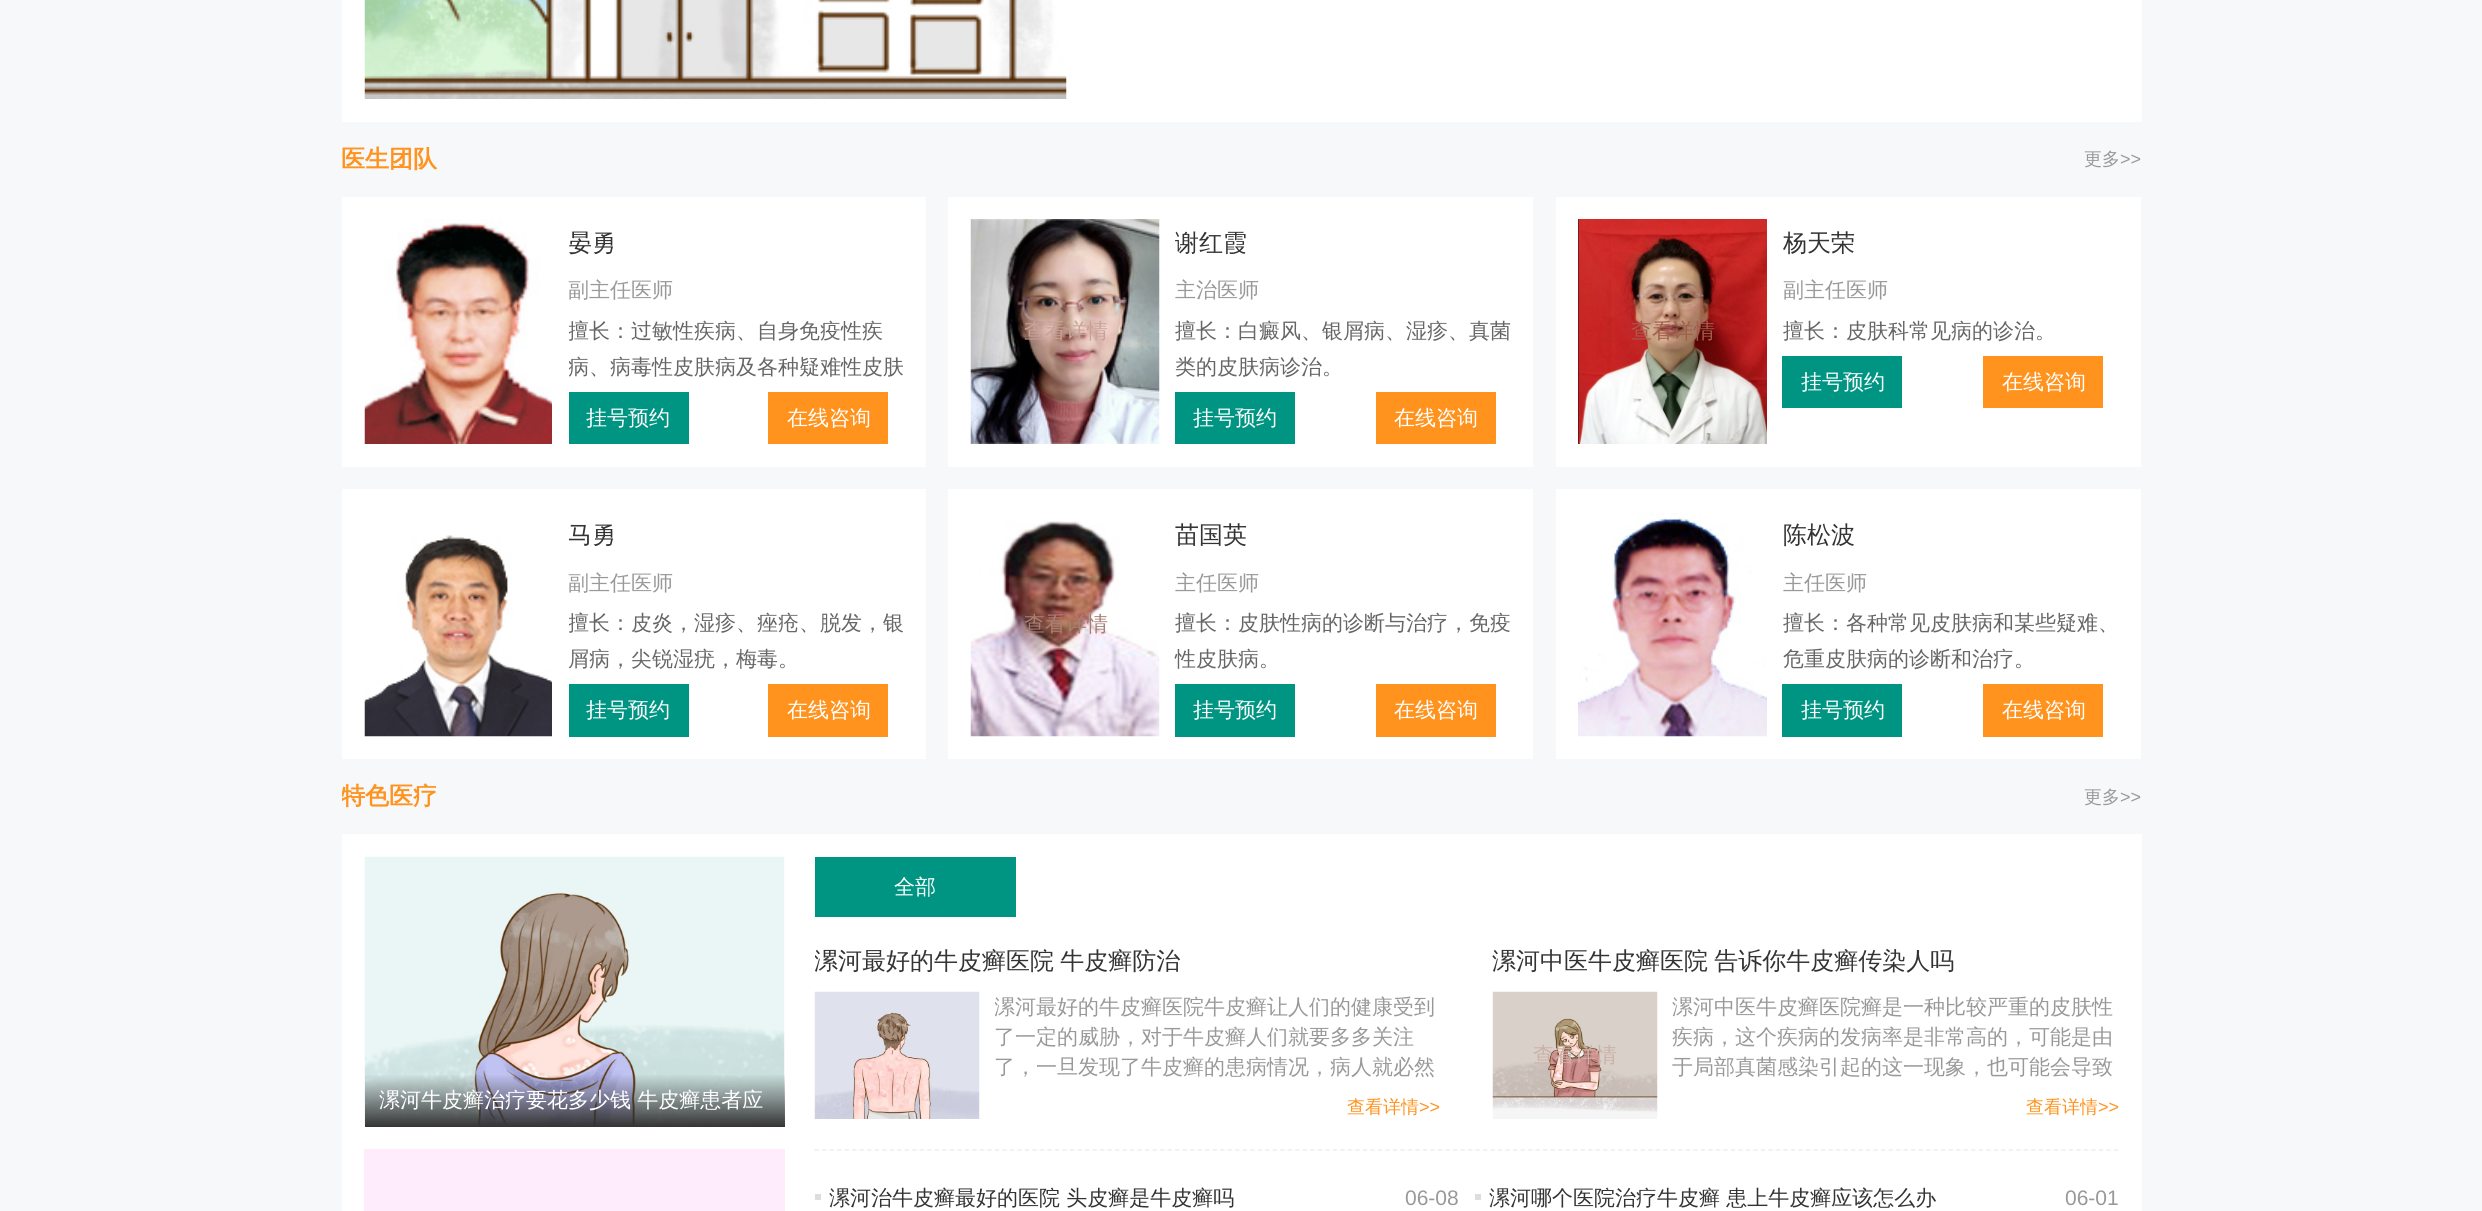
import math
import cairocffi as cairo

surface = cairo.ImageSurface(cairo.FORMAT_RGB24, 2482, 1211)
cr = cairo.Context(surface)
options = cairo.FontOptions()
options.set_hint_metrics(cairo.HINT_METRICS_OFF)
options.set_hint_style(cairo.HINT_STYLE_NONE)
cr.set_font_options(options)
cr.set_miter_limit(4)


def use_color(code):
    cr.set_source_rgb(*(v / 255 for v in bytes.fromhex(code[-6:])))


def spaced_text(x, y, s, letter, word):
    cr.move_to(x, y)
    for ch in s:
        cr.show_text(ch)
        cr.rel_move_to(letter + word * (ch == ' '), 0)


def picture(path, x, y, w, h):
    cr.save()
    cr.set_source_surface(cairo.ImageSurface.create_from_png(path), x, y)
    cr.rectangle(x, y, w, h)
    cr.fill()
    cr.restore()


use_color("#f7f8fa")
cr.paint()
use_color("#ffffff")
cr.rectangle(342, 0, 1800, 122)
cr.fill()
picture("img1.png", 364, 0, 703, 99)
cr.select_font_face("WenQuanYi Zen Hei", cairo.FONT_SLANT_NORMAL, cairo.FONT_WEIGHT_BOLD)
cr.set_font_size(24)
use_color("#ff931e")
cr.move_to(341, 167)
cr.show_text("医生团队")
cr.select_font_face("WenQuanYi Zen Hei Medium")
cr.set_font_size(18)
use_color("#999999")
cr.move_to(2084, 165)
cr.show_text("更多")
cr.select_font_face("Liberation Sans")
cr.move_to(2120, 165)
cr.show_text(">>")
use_color("#ffffff")
cr.rectangle(342, 197, 584, 270)
cr.fill()
picture("img2.png", 364, 219, 188, 225)
cr.select_font_face("WenQuanYi Zen Hei Medium")
cr.set_font_size(24)
use_color("#333333")
cr.move_to(568, 251)
cr.show_text("晏勇")
cr.set_font_size(21)
use_color("#999999")
cr.move_to(568, 297)
cr.show_text("副主任医师")
cr.save()
cr.rectangle(569, 312, 334, 72)
cr.clip()
use_color("#666666")
cr.move_to(568, 338)
cr.show_text("擅长：过敏性疾病、自身免疫性疾")
cr.move_to(568, 374)
cr.show_text("病、病毒性皮肤病及各种疑难性皮肤")
cr.restore()
use_color("#009582")
cr.rectangle(569, 392, 120, 52)
cr.fill()
use_color("#ffffff")
cr.move_to(586, 425)
cr.show_text("挂号预约")
use_color("#ff931e")
cr.rectangle(768, 392, 120, 52)
cr.fill()
use_color("#ffffff")
cr.move_to(787, 425)
cr.show_text("在线咨询")
cr.rectangle(948, 197, 585, 270)
cr.fill()
picture("img3.png", 970, 219, 190, 225)
use_color("#c7a298")
cr.move_to(1024, 338)
cr.show_text("查看详情")
cr.set_font_size(24)
use_color("#333333")
cr.move_to(1175, 251)
cr.show_text("谢红霞")
cr.set_font_size(21)
use_color("#999999")
cr.move_to(1175, 297)
cr.show_text("主治医师")
use_color("#666666")
cr.move_to(1175, 338)
cr.show_text("擅长：白癜风、银屑病、湿疹、真菌")
cr.move_to(1175, 374)
cr.show_text("类的皮肤病诊治。")
use_color("#009582")
cr.rectangle(1175, 392, 120, 52)
cr.fill()
use_color("#ffffff")
cr.move_to(1193, 425)
cr.show_text("挂号预约")
use_color("#ff931e")
cr.rectangle(1376, 392, 120, 52)
cr.fill()
use_color("#ffffff")
cr.move_to(1394, 425)
cr.show_text("在线咨询")
cr.rectangle(1556, 197, 585, 270)
cr.fill()
picture("img4.png", 1578, 219, 189, 225)
use_color("#a55c4d")
cr.move_to(1631, 338)
cr.show_text("查看详情")
cr.set_font_size(24)
use_color("#333333")
cr.move_to(1783, 251)
cr.show_text("杨天荣")
cr.set_font_size(21)
use_color("#999999")
cr.move_to(1783, 297)
cr.show_text("副主任医师")
use_color("#666666")
cr.move_to(1783, 338)
cr.show_text("擅长：皮肤科常见病的诊治。")
use_color("#009582")
cr.rectangle(1782, 356, 120, 52)
cr.fill()
use_color("#ffffff")
cr.move_to(1801, 389)
cr.show_text("挂号预约")
use_color("#ff931e")
cr.rectangle(1983, 356, 120, 52)
cr.fill()
use_color("#ffffff")
cr.move_to(2002, 389)
cr.show_text("在线咨询")
cr.rectangle(342, 489, 584, 270)
cr.fill()
picture("img5.png", 364, 535, 188, 202)
cr.save()
cr.rectangle(569, 512, 334, 48)
cr.clip()
cr.set_font_size(24)
use_color("#333333")
cr.move_to(568, 543)
cr.show_text("马勇")
cr.restore()
use_color("#999999")
cr.move_to(568, 590)
cr.show_text("副主任医师")
cr.save()
cr.rectangle(569, 605, 334, 72)
cr.clip()
use_color("#666666")
cr.move_to(568, 630)
cr.show_text("擅长：皮炎，湿疹、痤疮、脱发，银")
cr.restore()
use_color("#666666")
cr.move_to(568, 666)
cr.show_text("屑病，尖锐湿疣，梅毒。")
use_color("#009582")
cr.rectangle(569, 684, 120, 53)
cr.fill()
use_color("#ffffff")
cr.move_to(586, 717)
cr.show_text("挂号预约")
use_color("#ff931e")
cr.rectangle(768, 684, 120, 53)
cr.fill()
use_color("#ffffff")
cr.move_to(787, 717)
cr.show_text("在线咨询")
cr.rectangle(948, 489, 585, 270)
cr.fill()
picture("img6.png", 970, 521, 190, 216)
use_color("#a87f75")
cr.move_to(1024, 631)
cr.show_text("查看详情")
cr.set_font_size(24)
use_color("#333333")
cr.move_to(1175, 543)
cr.show_text("苗国英")
cr.set_font_size(21)
use_color("#999999")
cr.move_to(1175, 590)
cr.show_text("主任医师")
use_color("#666666")
cr.move_to(1175, 630)
cr.show_text("擅长：皮肤性病的诊断与治疗，免疫")
cr.move_to(1175, 666)
cr.show_text("性皮肤病。")
use_color("#009582")
cr.rectangle(1175, 684, 120, 53)
cr.fill()
use_color("#ffffff")
cr.move_to(1193, 717)
cr.show_text("挂号预约")
use_color("#ff931e")
cr.rectangle(1376, 684, 120, 53)
cr.fill()
use_color("#ffffff")
cr.move_to(1394, 717)
cr.show_text("在线咨询")
cr.rectangle(1556, 489, 585, 270)
cr.fill()
picture("img7.png", 1578, 513, 189, 224)
cr.set_font_size(24)
use_color("#333333")
cr.move_to(1783, 543)
cr.show_text("陈松波")
cr.set_font_size(21)
use_color("#999999")
cr.move_to(1783, 590)
cr.show_text("主任医师")
use_color("#666666")
cr.move_to(1783, 630)
cr.show_text("擅长：各种常见皮肤病和某些疑难、")
cr.move_to(1783, 666)
cr.show_text("危重皮肤病的诊断和治疗。")
use_color("#009582")
cr.rectangle(1782, 684, 120, 53)
cr.fill()
use_color("#ffffff")
cr.move_to(1801, 717)
cr.show_text("挂号预约")
use_color("#ff931e")
cr.rectangle(1983, 684, 120, 53)
cr.fill()
use_color("#ffffff")
cr.move_to(2002, 717)
cr.show_text("在线咨询")
cr.save()
cr.rectangle(342, 759, 1800, 75)
cr.clip()
cr.select_font_face("WenQuanYi Zen Hei", cairo.FONT_SLANT_NORMAL, cairo.FONT_WEIGHT_BOLD)
cr.set_font_size(24)
use_color("#ff931e")
cr.move_to(341, 804)
cr.show_text("特色医疗")
cr.restore()
cr.set_font_size(18)
use_color("#999999")
cr.move_to(2084, 803)
cr.show_text("更多")
cr.select_font_face("Liberation Sans")
cr.move_to(2120, 803)
cr.show_text(">>")
use_color("#ffffff")
cr.rectangle(342, 834, 1800, 377)
cr.fill()
use_color("#009582")
cr.rectangle(815, 857, 201, 60)
cr.fill()
cr.select_font_face("WenQuanYi Zen Hei Medium")
cr.set_font_size(21)
use_color("#ffffff")
cr.move_to(894, 894)
cr.show_text("全部")
picture("img8.png", 364, 856, 421, 271)
gradient = cairo.LinearGradient(575, 1074, 575, 1127)
gradient.add_color_stop_rgba(0, 0.2, 0.2, 0.2, 0)
gradient.add_color_stop_rgba(1, 0.2, 0.2, 0.2, 1)
cr.set_source(gradient)
cr.rectangle(365, 1075, 420, 52)
cr.fill()
use_color("#ffffff")
cr.move_to(379, 1107)
cr.show_text("漯河牛皮癣治疗要花多少钱 牛皮癣患者应")
use_color("#feecfc")
cr.rectangle(364, 1149, 421, 62)
cr.fill()
cr.new_path()
cr.move_to(814.5, 1150)
cr.line_to(2119.5, 1150)
use_color("#eeeeee")
cr.set_line_width(1.5)
cr.set_dash([4.5, 3.01])
cr.stroke()
cr.save()
cr.rectangle(815, 939, 625, 45)
cr.clip()
cr.set_font_size(24)
use_color("#333333")
spaced_text(814, 969, "漯河最好的牛皮癣医院 牛皮癣防治", 0, -1)
cr.restore()
picture("img9.png", 814, 991, 166, 128)
cr.save()
cr.rectangle(995, 992, 445, 90)
cr.clip()
use_color("#999999")
cr.move_to(994, 1014)
cr.show_text("漯河最好的牛皮癣医院牛皮癣让人们的健康受到")
cr.restore()
use_color("#999999")
cr.move_to(994, 1044)
cr.show_text("了一定的威胁，对于牛皮癣人们就要多多关注")
cr.move_to(994, 1074)
cr.show_text("了，一旦发现了牛皮癣的患病情况，病人就必然")
cr.set_font_size(18)
use_color("#ff931e")
cr.move_to(1347, 1113)
cr.show_text("查看详情")
cr.select_font_face("Liberation Sans")
cr.move_to(1419, 1113)
cr.show_text(">>")
cr.select_font_face("WenQuanYi Zen Hei Medium")
cr.set_font_size(24)
use_color("#333333")
spaced_text(1492, 969, "漯河中医牛皮癣医院 告诉你牛皮癣传染人吗", 0, -1)
picture("img10.png", 1492, 991, 166, 128)
cr.set_font_size(21)
use_color("#ccb1a8")
cr.move_to(1533, 1062)
cr.show_text("查看详情")
use_color("#999999")
cr.move_to(1672, 1014)
cr.show_text("漯河中医牛皮癣医院癣是一种比较严重的皮肤性")
cr.move_to(1672, 1044)
cr.show_text("疾病，这个疾病的发病率是非常高的，可能是由")
cr.move_to(1672, 1074)
cr.show_text("于局部真菌感染引起的这一现象，也可能会导致")
cr.set_font_size(18)
use_color("#ff931e")
cr.move_to(2026, 1113)
cr.show_text("查看详情")
cr.select_font_face("Liberation Sans")
cr.move_to(2098, 1113)
cr.show_text(">>")
use_color("#dddddd")
cr.rectangle(815, 1194, 6, 6)
cr.fill()
cr.select_font_face("WenQuanYi Zen Hei Medium")
cr.set_font_size(21)
use_color("#333333")
cr.move_to(829, 1205)
cr.show_text("漯河治牛皮癣最好的医院 头皮癣是牛皮癣吗")
cr.select_font_face("Liberation Sans")
use_color("#999999")
cr.move_to(1405, 1205)
cr.show_text("06-08")
use_color("#dddddd")
cr.rectangle(1475, 1194, 6, 6)
cr.fill()
cr.select_font_face("WenQuanYi Zen Hei Medium")
use_color("#333333")
cr.move_to(1489, 1205)
cr.show_text("漯河哪个医院治疗牛皮癣 患上牛皮癣应该怎么办")
cr.select_font_face("Liberation Sans")
use_color("#999999")
cr.move_to(2065, 1205)
cr.show_text("06-01")
surface.write_to_png("result.png")
